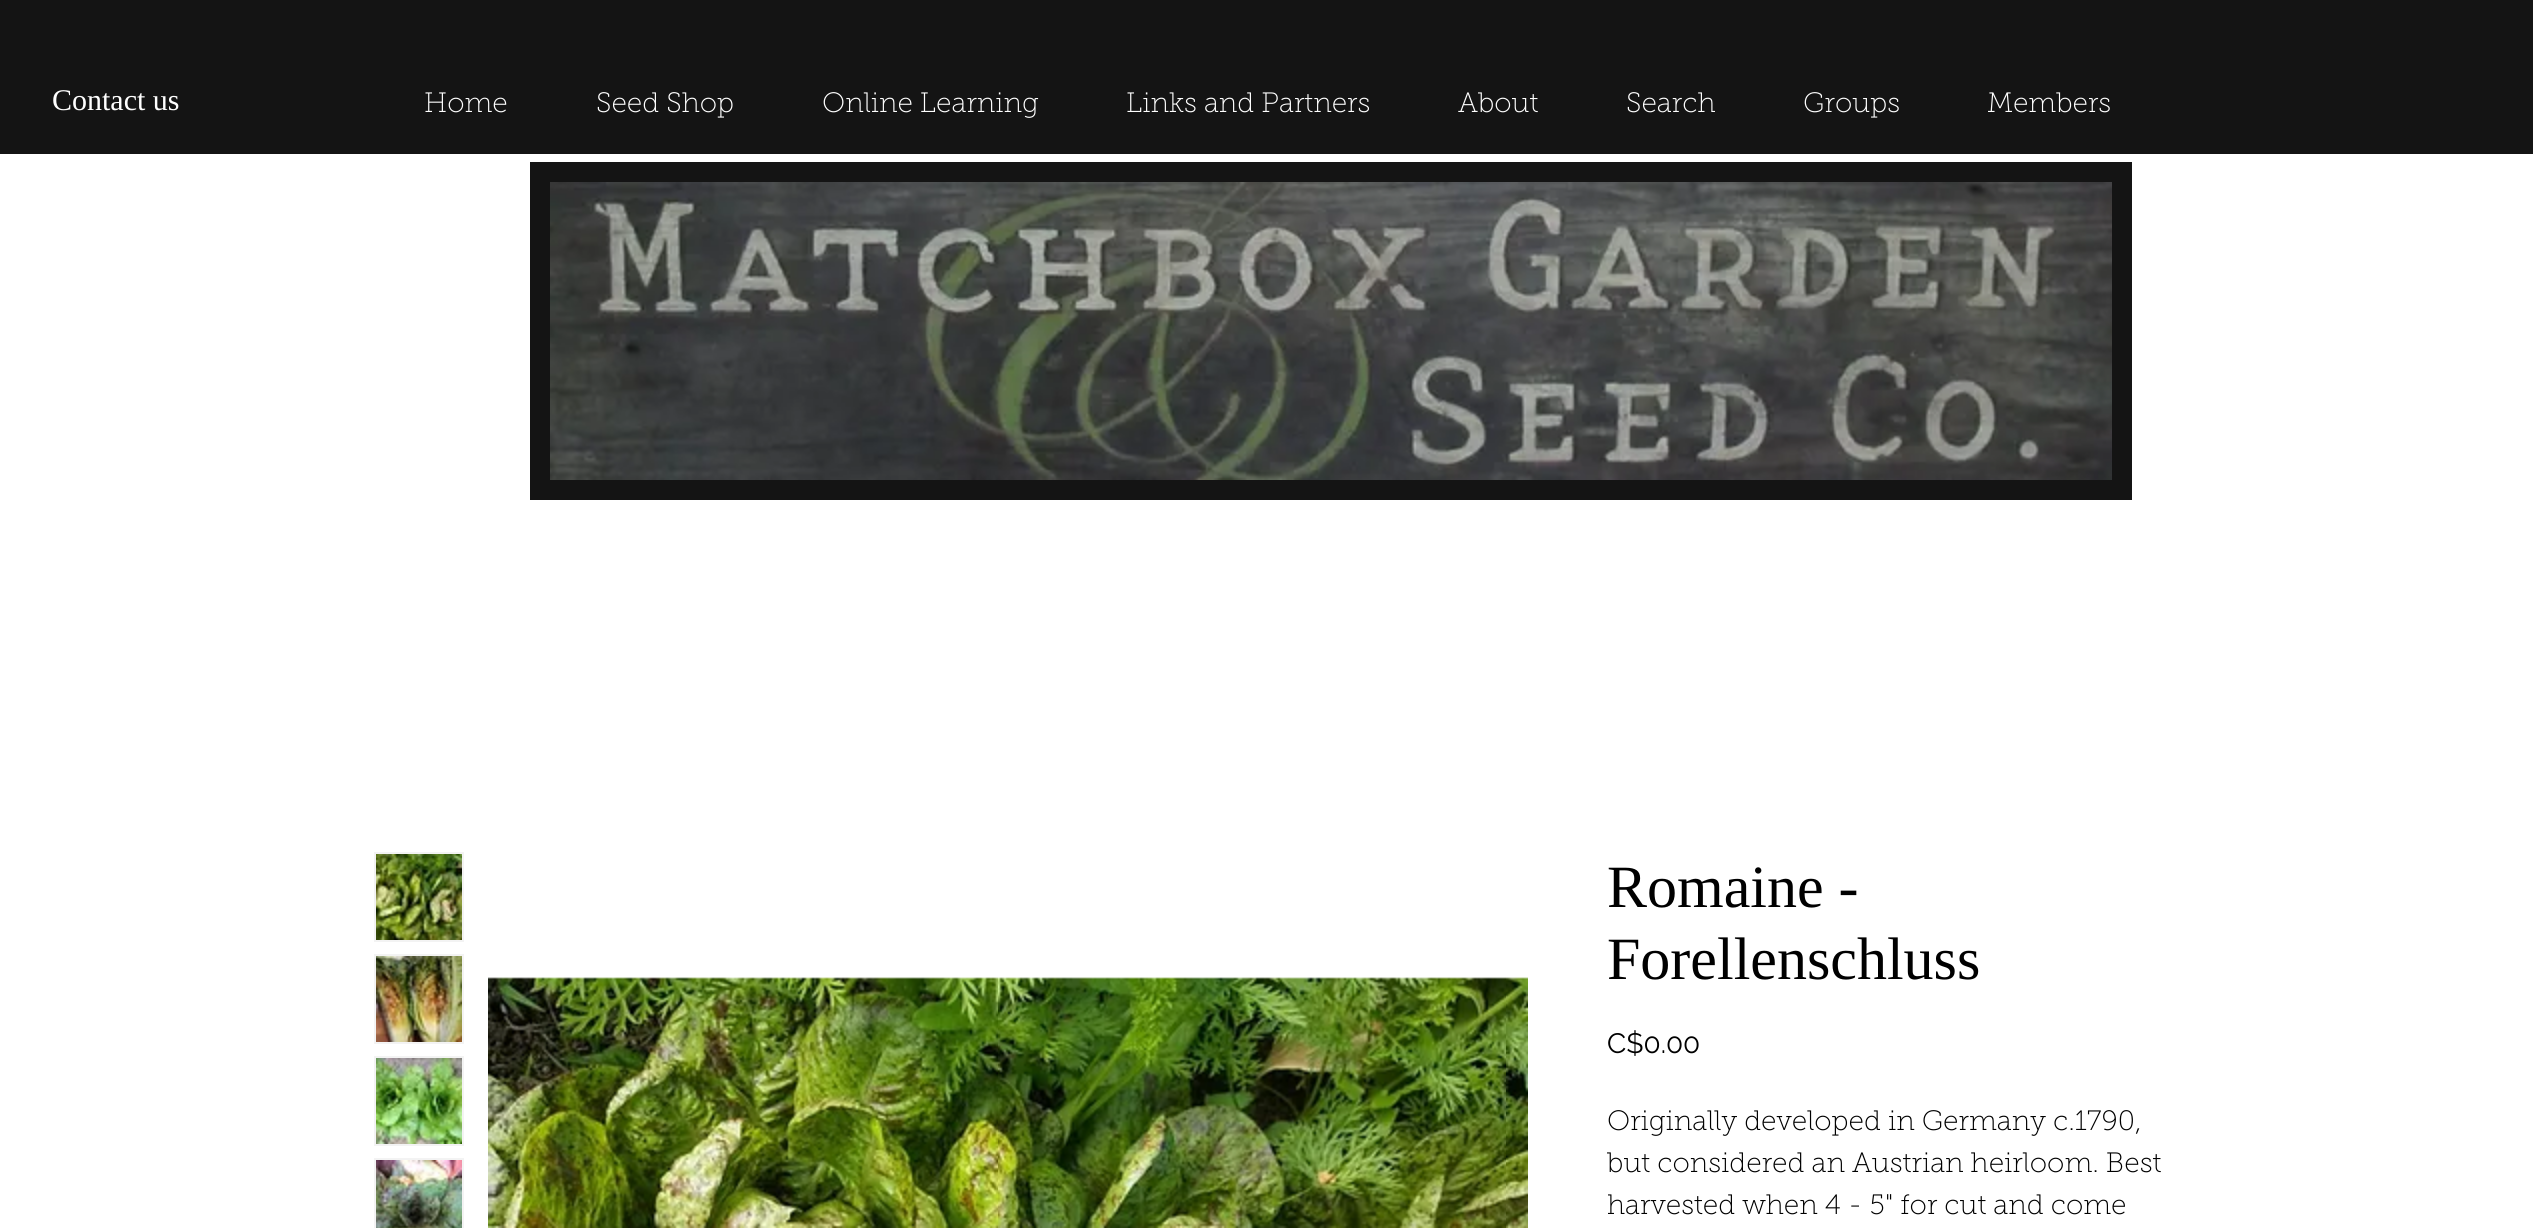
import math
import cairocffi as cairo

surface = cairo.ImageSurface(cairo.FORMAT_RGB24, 2533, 1228)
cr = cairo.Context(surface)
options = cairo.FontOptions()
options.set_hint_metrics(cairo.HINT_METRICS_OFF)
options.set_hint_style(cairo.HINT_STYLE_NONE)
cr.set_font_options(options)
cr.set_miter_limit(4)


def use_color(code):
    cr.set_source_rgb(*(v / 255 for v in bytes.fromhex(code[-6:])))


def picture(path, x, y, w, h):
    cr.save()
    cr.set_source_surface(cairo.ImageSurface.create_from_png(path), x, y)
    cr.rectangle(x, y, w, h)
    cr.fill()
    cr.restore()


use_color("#ffffff")
cr.paint()
use_color("#141414")
cr.rectangle(0, 0, 2533, 154)
cr.fill()
cr.select_font_face("Liberation Serif")
cr.set_font_size(30)
use_color("#ffffff")
cr.move_to(52, 110)
cr.show_text("Contact us")
cr.select_font_face("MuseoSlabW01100 Thin")
cr.set_font_size(28)
cr.move_to(424, 112)
cr.show_text("Home")
cr.move_to(596, 112)
cr.show_text("Seed Shop")
cr.move_to(822, 112)
cr.show_text("Online Learning")
cr.move_to(1126, 112)
cr.show_text("Links and Partners")
cr.move_to(1458, 112)
cr.show_text("About")
cr.move_to(1626, 112)
cr.show_text("Search")
cr.move_to(1803, 112)
cr.show_text("Groups")
cr.move_to(1987, 112)
cr.show_text("Members")
use_color("#141414")
cr.rectangle(530, 162, 1602, 338)
cr.fill()
picture("img1.png", 550, 182, 1562, 298)
use_color("#f3f3f3")
cr.rectangle(374, 852, 90, 90)
cr.fill()
picture("img2.png", 376, 854, 86, 86)
cr.rectangle(374, 954, 90, 90)
cr.fill()
picture("img3.png", 376, 956, 86, 86)
cr.rectangle(374, 1056, 90, 90)
cr.fill()
picture("img4.png", 376, 1058, 86, 86)
cr.rectangle(374, 1158, 90, 70)
cr.fill()
picture("img5.png", 376, 1160, 86, 68)
picture("img6.png", 488, 977, 1040, 251)
cr.select_font_face("Liberation Serif")
cr.set_font_size(60)
use_color("#000000")
cr.move_to(1607, 907)
cr.show_text("Romaine -")
cr.move_to(1607, 979)
cr.show_text("Forellenschluss")
cr.select_font_face("Raleway")
cr.set_font_size(28)
cr.move_to(1607, 1053)
cr.show_text("C$0.00")
cr.select_font_face("MuseoSlabW01100 Thin")
cr.move_to(1607, 1130)
cr.show_text("Originally developed in Germany c.1790,")
cr.move_to(1607, 1172)
cr.show_text("but considered an Austrian heirloom. Best")
cr.save()
cr.rectangle(1608, 1104, 560, 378)
cr.clip()
cr.move_to(1607, 1214)
cr.show_text("harvested when 4 - 5\" for cut and come")
cr.restore()
surface.write_to_png("result.png")
